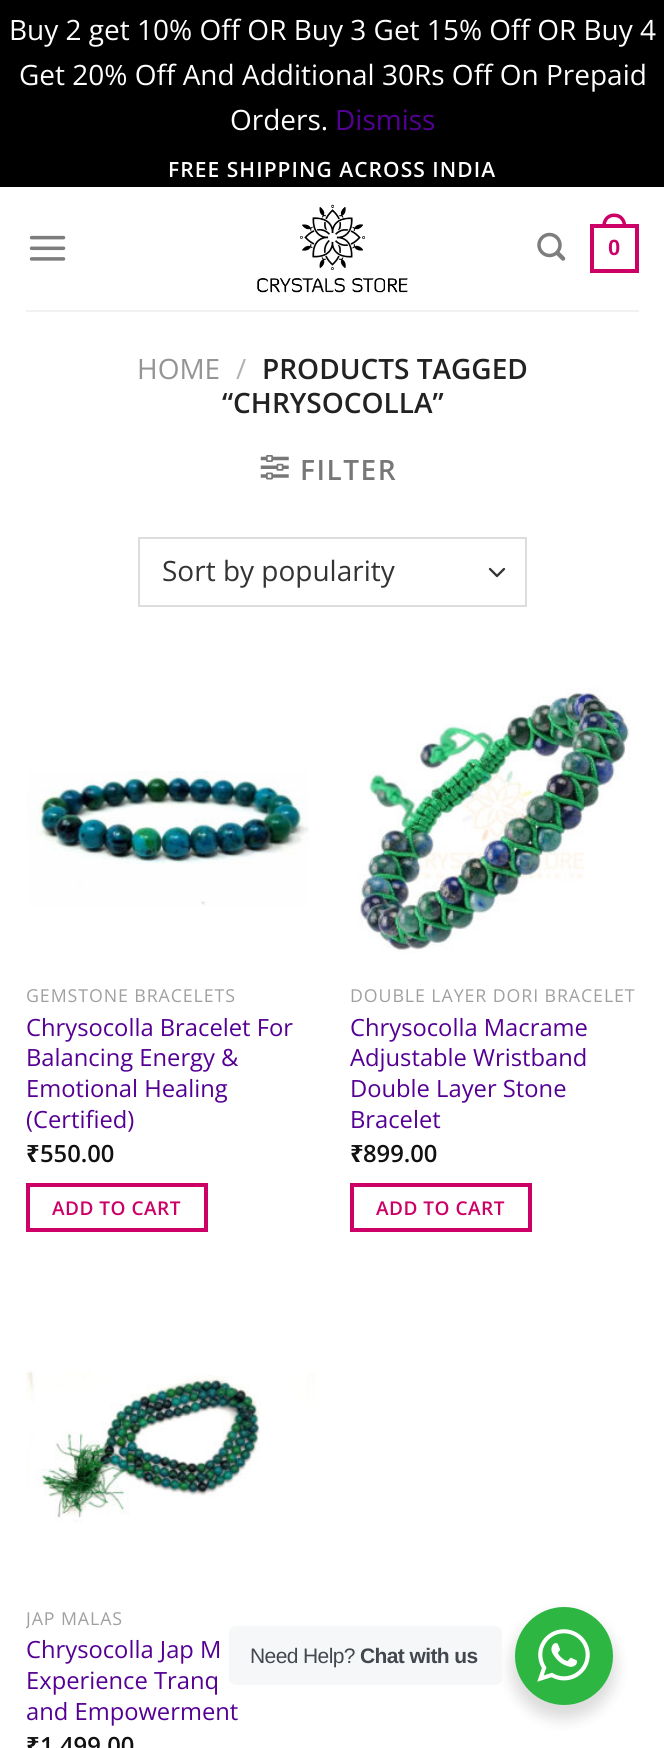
import math
import cairocffi as cairo

surface = cairo.ImageSurface(cairo.FORMAT_RGB24, 664, 1748)
cr = cairo.Context(surface)
options = cairo.FontOptions()
options.set_hint_metrics(cairo.HINT_METRICS_OFF)
options.set_hint_style(cairo.HINT_STYLE_NONE)
cr.set_font_options(options)
cr.set_miter_limit(4)


def use_color(code):
    cr.set_source_rgb(*(v / 255 for v in bytes.fromhex(code[-6:])))


def spaced_text(x, y, s, letter, word):
    cr.move_to(x, y)
    for ch in s:
        cr.show_text(ch)
        cr.rel_move_to(letter + word * (ch == ' '), 0)


def round_rect(x, y, w, h, r):
    cr.new_sub_path()
    for i, (u, v) in enumerate([(x + w - r, y + h - r), (x + r, y + h - r), (x + r, y + r), (x + w - r, y + r)]):
        cr.arc(u, v, r, i * math.pi / 2, (i + 1) * math.pi / 2)
    cr.close_path()


def shadow(x, y, w, h, r, blur, alpha):
    cr.push_group_with_content(cairo.CONTENT_ALPHA)
    cr.set_operator(cairo.OPERATOR_SOURCE)
    for i in range(15, -16, -2):
        e = blur * i / 6
        if min(w, h) + 2 * e > 0:
            cr.set_source_rgba(0, 0, 0, alpha * math.erfc((i - 1) / 8.5) / 2)
            round_rect(x - e, y - e, w + 2 * e, h + 2 * e, max(0, min(r + e + blur * .6, min(w, h) / 2 + e)))
            cr.fill()
    cr.mask(cr.pop_group())


def picture(path, x, y, w, h):
    cr.save()
    cr.set_source_surface(cairo.ImageSurface.create_from_png(path), x, y)
    cr.rectangle(x, y, w, h)
    cr.fill()
    cr.restore()


use_color("#000000")
cr.paint()
cr.select_font_face("Open Sans")
cr.set_font_size(28)
use_color("#ffffff")
cr.move_to(9, 40)
cr.show_text("Buy 2 get 10% Off OR Buy 3 Get 15% Off OR Buy 4")
cr.move_to(19, 85)
cr.show_text("Get 20% Off And Additional 30Rs Off On Prepaid")
cr.move_to(230, 130)
cr.show_text("Orders.")
use_color("#550094")
cr.move_to(335, 130)
cr.show_text("Dismiss")
use_color("#ffffff")
cr.rectangle(0, 187, 664, 1561)
cr.fill()
cr.select_font_face("Open Sans SemiBold")
cr.set_font_size(21)
spaced_text(168, 177, "FREE SHIPPING ACROSS INDIA", 1.05, 0)
picture("img1.png", 29, 235, 37, 26)
picture("img2.png", 257, 204, 151, 89)
picture("img3.png", 537, 232, 29, 29)
cr.rectangle(592, 226, 45, 45)
use_color("#cc0066")
cr.set_line_width(4)
cr.stroke()
cr.set_fill_rule(cairo.FILL_RULE_EVEN_ODD)
cr.new_path()
cr.move_to(614, 213.5)
cr.curve_to(622.5, 213.5, 626.5, 220, 626.5, 227.5)
cr.line_to(602, 227.5)
cr.curve_to(602, 220, 606, 213.5, 614, 213.5)
cr.close_path()
cr.move_to(614, 217)
cr.curve_to(620.5, 217, 623, 222, 623, 227.5)
cr.line_to(605.5, 227.5)
cr.curve_to(605.5, 222, 608, 217, 614, 217)
cr.close_path()
cr.fill()
cr.select_font_face("Liberation Sans", cairo.FONT_SLANT_NORMAL, cairo.FONT_WEIGHT_BOLD)
cr.set_font_size(22)
cr.move_to(608, 255)
cr.show_text("0")
use_color("#f1f1f1")
cr.rectangle(26, 310, 613, 2)
cr.fill()
cr.select_font_face("Open Sans")
cr.set_font_size(28)
use_color("#949494")
cr.move_to(137, 379)
cr.show_text("HOME")
use_color("#b2b2b2")
cr.move_to(236, 379)
cr.show_text("/")
cr.select_font_face("Open Sans SemiBold")
use_color("#222222")
cr.move_to(262, 379)
cr.show_text("PRODUCTS TAGGED")
cr.move_to(222, 413)
cr.show_text("“CHRYSOCOLLA”")
picture("img4.png", 260, 455, 29, 25)
use_color("#777777")
spaced_text(300, 480, "FILTER", 1.5, 0)
cr.new_path()
cr.move_to(490, 569)
cr.line_to(497, 576)
cr.line_to(504, 569)
use_color("#333333")
cr.set_line_width(2.3)
cr.set_line_cap(cairo.LINE_CAP_ROUND)
cr.set_line_join(cairo.LINE_JOIN_ROUND)
cr.stroke()
cr.rectangle(139, 538, 387, 68)
use_color("#dddddd")
cr.set_line_width(2)
cr.set_line_cap(cairo.LINE_CAP_BUTT)
cr.set_line_join(cairo.LINE_JOIN_MITER)
cr.stroke()
cr.select_font_face("Open Sans")
use_color("#333333")
cr.move_to(162, 581)
cr.show_text("Sort by popularity")
picture("img5.png", 27, 771, 282, 135)
cr.set_font_size(17.8)
use_color("#a0a0a0")
spaced_text(26, 1002, "GEMSTONE BRACELETS", 0.9, 0)
cr.set_font_size(23.75)
use_color("#550094")
cr.move_to(26, 1036)
cr.show_text("Chrysocolla Bracelet For")
cr.move_to(26, 1066)
cr.show_text("Balancing Energy &")
cr.move_to(26, 1097)
cr.show_text("Emotional Healing")
cr.move_to(26, 1128)
cr.show_text("(Certified)")
cr.select_font_face("Noto Sans", cairo.FONT_SLANT_NORMAL, cairo.FONT_WEIGHT_BOLD)
use_color("#111111")
cr.move_to(26, 1162)
cr.show_text("₹")
cr.select_font_face("Open Sans SemiBold")
cr.move_to(40, 1162)
cr.show_text("550.00")
cr.rectangle(28, 1185, 178, 45)
use_color("#cc0066")
cr.set_line_width(4)
cr.stroke()
cr.set_font_size(19)
spaced_text(52, 1215, "ADD TO CART", 0.5, 0)
picture("img6.png", 359, 687, 272, 267)
cr.select_font_face("Open Sans")
cr.set_font_size(17.8)
use_color("#a0a0a0")
spaced_text(350, 1002, "DOUBLE LAYER DORI BRACELET", 0.9, 0)
cr.set_font_size(23.75)
use_color("#550094")
cr.move_to(350, 1036)
cr.show_text("Chrysocolla Macrame")
cr.move_to(350, 1066)
cr.show_text("Adjustable Wristband")
cr.move_to(350, 1097)
cr.show_text("Double Layer Stone")
cr.move_to(350, 1128)
cr.show_text("Bracelet")
cr.select_font_face("Noto Sans", cairo.FONT_SLANT_NORMAL, cairo.FONT_WEIGHT_BOLD)
use_color("#111111")
cr.move_to(350, 1162)
cr.show_text("₹")
cr.select_font_face("Open Sans SemiBold")
cr.move_to(363, 1162)
cr.show_text("899.00")
cr.rectangle(352, 1185, 178, 45)
use_color("#cc0066")
cr.stroke()
cr.set_font_size(19)
spaced_text(376, 1215, "ADD TO CART", 0.5, 0)
picture("img7.png", 26, 1366, 289, 157)
cr.save()
cr.set_fill_rule(cairo.FILL_RULE_WINDING)
cr.rectangle(26, 1608, 289, 21)
cr.clip()
cr.select_font_face("Open Sans")
cr.set_font_size(17.8)
use_color("#a0a0a0")
spaced_text(26, 1625, "JAP MALAS", 0.9, 0)
cr.restore()
cr.select_font_face("Open Sans")
cr.set_font_size(23.75)
use_color("#550094")
cr.move_to(26, 1658)
cr.show_text("Chrysocolla Jap M")
cr.move_to(26, 1689)
cr.show_text("Experience Tranq")
cr.move_to(26, 1720)
cr.show_text("and Empowerment")
cr.select_font_face("Noto Sans", cairo.FONT_SLANT_NORMAL, cairo.FONT_WEIGHT_BOLD)
use_color("#111111")
cr.move_to(26, 1754)
cr.show_text("₹")
cr.select_font_face("Open Sans SemiBold")
cr.move_to(40, 1754)
cr.show_text("1,499.00")
use_color("#000000")
shadow(511, 1614, 105, 105, 52.5, 7, 0.14)
use_color("#f5f7f9")
round_rect(229, 1626, 273, 59, 7)
cr.fill()
cr.select_font_face("Liberation Sans")
cr.set_font_size(21)
use_color("#43474e")
spaced_text(250, 1663, "Need Help?", -0.6, 0)
cr.select_font_face("Liberation Sans", cairo.FONT_SLANT_NORMAL, cairo.FONT_WEIGHT_BOLD)
spaced_text(360, 1663, "Chat with us", -0.6, 0)
use_color("#2db742")
cr.new_path()
cr.arc(564, 1656, 49, 0, 2 * math.pi)
cr.fill()
picture("img8.png", 537, 1629, 53, 53)
surface.write_to_png("result.png")
